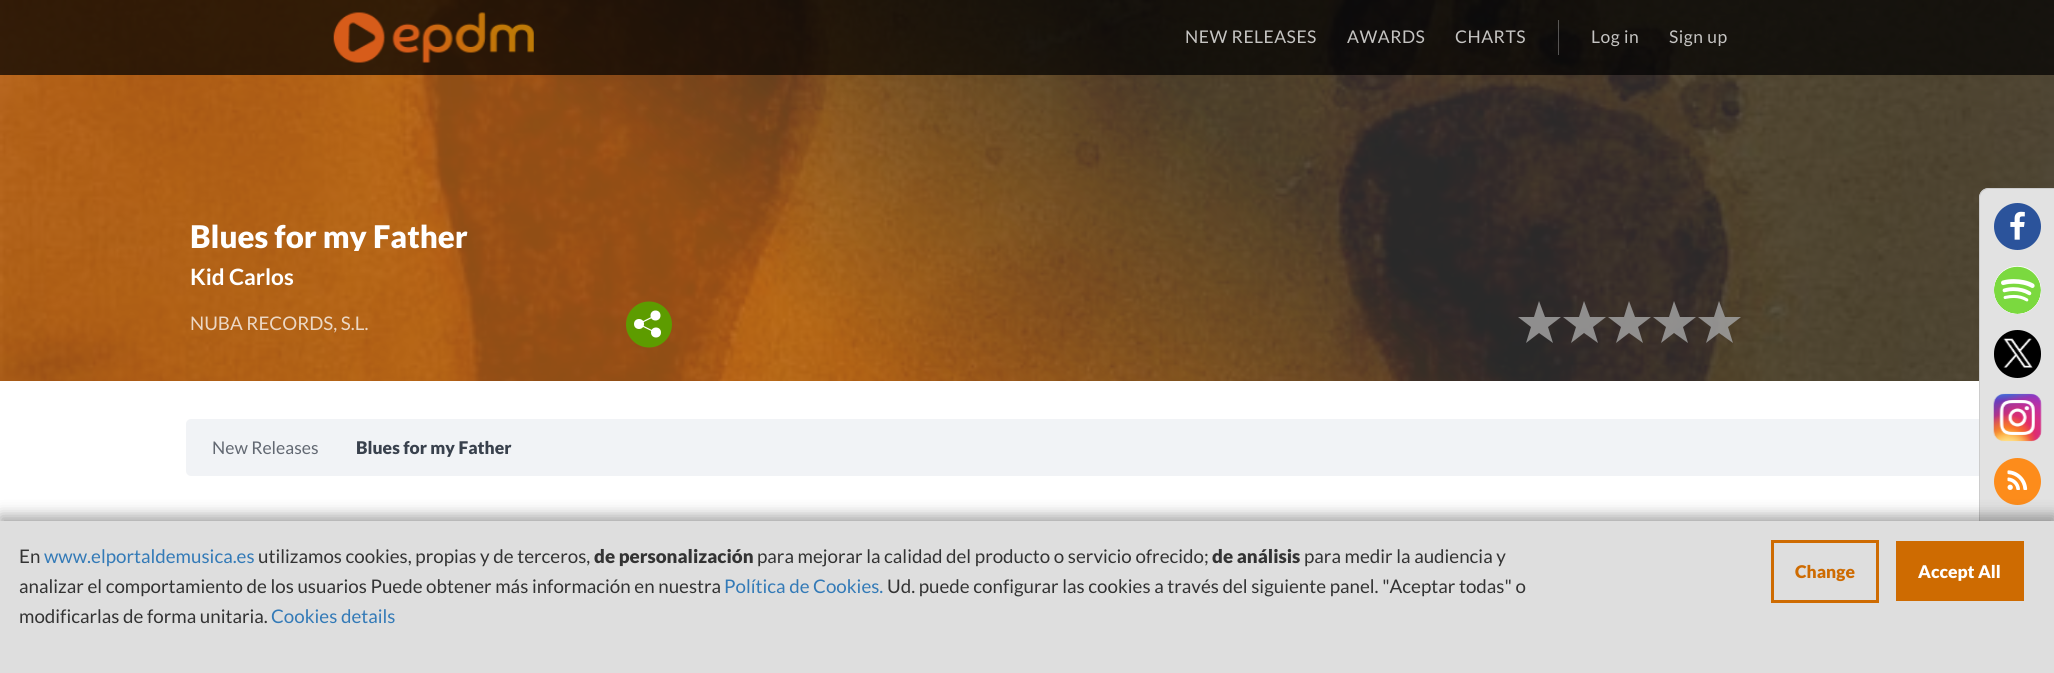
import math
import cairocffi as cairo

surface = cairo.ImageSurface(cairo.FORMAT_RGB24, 2054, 673)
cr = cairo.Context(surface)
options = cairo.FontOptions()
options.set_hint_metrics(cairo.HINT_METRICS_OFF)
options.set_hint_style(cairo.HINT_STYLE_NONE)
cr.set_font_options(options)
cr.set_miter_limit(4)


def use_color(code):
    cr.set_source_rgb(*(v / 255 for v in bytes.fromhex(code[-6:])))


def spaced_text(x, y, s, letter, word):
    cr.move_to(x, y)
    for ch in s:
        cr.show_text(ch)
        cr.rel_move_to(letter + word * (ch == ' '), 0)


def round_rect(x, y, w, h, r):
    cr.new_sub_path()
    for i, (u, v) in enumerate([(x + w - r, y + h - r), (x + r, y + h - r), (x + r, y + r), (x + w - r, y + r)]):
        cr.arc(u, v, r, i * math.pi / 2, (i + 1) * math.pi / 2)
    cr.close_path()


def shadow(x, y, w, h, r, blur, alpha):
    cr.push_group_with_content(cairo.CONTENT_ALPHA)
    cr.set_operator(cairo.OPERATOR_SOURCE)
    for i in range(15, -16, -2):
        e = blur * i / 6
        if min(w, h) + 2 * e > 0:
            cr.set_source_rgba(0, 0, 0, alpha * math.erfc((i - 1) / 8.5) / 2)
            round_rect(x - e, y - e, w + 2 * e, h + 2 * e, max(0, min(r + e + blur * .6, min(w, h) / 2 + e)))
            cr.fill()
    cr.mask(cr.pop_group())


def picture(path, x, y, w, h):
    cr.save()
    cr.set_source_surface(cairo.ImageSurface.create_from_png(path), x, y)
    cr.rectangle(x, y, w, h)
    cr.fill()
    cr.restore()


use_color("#ffffff")
cr.paint()
gradient = cairo.LinearGradient(491, 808, 1564, -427)
gradient.add_color_stop_rgba(0.35, 0.702, 0.384, 0.102, 1)
gradient.add_color_stop_rgba(0.61, 0.2, 0.2, 0.2, 1)
cr.set_source(gradient)
cr.rectangle(0, 0, 2054, 381)
cr.fill()
picture("img2.png", 0, 0, 2054, 381)
cr.set_source_rgba(0, 0, 0, 0.72)
cr.rectangle(0, 0, 2054, 75)
cr.fill()
picture("img1.png", 333, 12, 201, 51)
cr.select_font_face("Lato")
cr.set_font_size(17.5)
use_color("#c5c4c2")
spaced_text(1185, 43, "NEW RELEASES", 0.5, 0)
spaced_text(1347, 43, "AWARDS", 0.5, 0)
spaced_text(1455, 43, "CHARTS", 0.5, 0)
cr.set_source_rgba(1, 1, 1, 0.3)
cr.rectangle(1558, 20, 1, 35)
cr.fill()
use_color("#c5c4c2")
spaced_text(1591, 43, "Log in", 0.5, 0)
spaced_text(1669, 43, "Sign up", 0.5, 0)
cr.save()
cr.rectangle(190, 220, 648, 31)
cr.clip()
cr.select_font_face("Lato Black")
cr.set_font_size(31.25)
use_color("#ffffff")
cr.move_to(190, 248)
cr.show_text("Blues for my Father")
cr.restore()
cr.select_font_face("Lato", cairo.FONT_SLANT_NORMAL, cairo.FONT_WEIGHT_BOLD)
cr.set_font_size(22.5)
use_color("#ffffff")
cr.move_to(190, 285)
cr.show_text("Kid Carlos")
cr.select_font_face("Lato")
cr.set_font_size(18.75)
use_color("#ecd8c5")
cr.move_to(190, 330)
cr.show_text("NUBA RECORDS, S.L.")
use_color("#5d9c00")
cr.new_path()
cr.arc(649, 324.5, 23, 0, 2 * math.pi)
cr.fill()
use_color("#ffffff")
cr.arc(655.5, 315.5, 5, 0, 2 * math.pi)
cr.fill()
cr.arc(639, 324, 5, 0, 2 * math.pi)
cr.fill()
cr.arc(656, 332.5, 5, 0, 2 * math.pi)
cr.fill()
cr.new_path()
cr.move_to(654.5, 316)
cr.line_to(641.5, 322.5)
cr.move_to(640.5, 325)
cr.line_to(655.5, 332.5)
cr.set_line_width(1.2)
cr.stroke()
cr.set_source_rgba(0.627, 0.627, 0.627, 0.85)
cr.new_path()
cr.move_to(1539, 301)
cr.line_to(1545, 317)
cr.line_to(1561, 317)
cr.line_to(1548, 327)
cr.line_to(1553, 343)
cr.line_to(1539, 333)
cr.line_to(1526, 343)
cr.line_to(1531, 327)
cr.line_to(1518, 317)
cr.line_to(1534, 317)
cr.close_path()
cr.fill()
cr.new_path()
cr.move_to(1584, 301)
cr.line_to(1590, 317)
cr.line_to(1606, 317)
cr.line_to(1593, 327)
cr.line_to(1598, 343)
cr.line_to(1584, 333)
cr.line_to(1571, 343)
cr.line_to(1576, 327)
cr.line_to(1563, 317)
cr.line_to(1579, 317)
cr.close_path()
cr.fill()
cr.new_path()
cr.move_to(1629, 301)
cr.line_to(1635, 317)
cr.line_to(1651, 317)
cr.line_to(1638, 327)
cr.line_to(1643, 343)
cr.line_to(1629, 333)
cr.line_to(1616, 343)
cr.line_to(1621, 327)
cr.line_to(1608, 317)
cr.line_to(1624, 317)
cr.close_path()
cr.fill()
cr.new_path()
cr.move_to(1674, 301)
cr.line_to(1680, 317)
cr.line_to(1696, 317)
cr.line_to(1683, 327)
cr.line_to(1688, 343)
cr.line_to(1674, 333)
cr.line_to(1661, 343)
cr.line_to(1666, 327)
cr.line_to(1653, 317)
cr.line_to(1669, 317)
cr.close_path()
cr.fill()
cr.new_path()
cr.move_to(1719, 301)
cr.line_to(1725, 317)
cr.line_to(1741, 317)
cr.line_to(1728, 327)
cr.line_to(1733, 343)
cr.line_to(1719, 333)
cr.line_to(1706, 343)
cr.line_to(1711, 327)
cr.line_to(1698, 317)
cr.line_to(1714, 317)
cr.close_path()
cr.fill()
use_color("#f1f3f6")
round_rect(186, 419, 1850, 57, 5)
cr.fill()
cr.set_font_size(17.5)
use_color("#626872")
cr.move_to(212, 454)
cr.show_text("New Releases")
cr.select_font_face("Lato Black")
use_color("#39414d")
cr.move_to(356, 454)
cr.show_text("Blues for my Father")
use_color("#e2e2e2")
cr.new_path()
cr.move_to(1989, 188)
cr.line_to(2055, 188)
cr.line_to(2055, 530)
cr.line_to(1989, 530)
cr.curve_to(1983.5, 530, 1979, 525.5, 1979, 520)
cr.line_to(1979, 198)
cr.curve_to(1979, 192.5, 1983.5, 188, 1989, 188)
cr.close_path()
cr.fill()
use_color("#cccccc")
cr.set_fill_rule(cairo.FILL_RULE_EVEN_ODD)
cr.new_path()
cr.move_to(1989, 188)
cr.line_to(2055, 188)
cr.line_to(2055, 530)
cr.line_to(1989, 530)
cr.curve_to(1983, 530, 1979, 526, 1979, 520)
cr.line_to(1979, 198)
cr.curve_to(1979, 192, 1983, 188, 1989, 188)
cr.close_path()
cr.move_to(1989, 189)
cr.line_to(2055, 189)
cr.line_to(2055, 529)
cr.line_to(1989, 529)
cr.curve_to(1984, 529, 1980, 525, 1980, 520)
cr.line_to(1980, 198)
cr.curve_to(1980, 193, 1984, 189, 1989, 189)
cr.close_path()
cr.fill()
use_color("#2b539b")
cr.arc(2017.5, 226.5, 23.5, 0, 2 * math.pi)
cr.fill()
picture("img3.png", 2010, 211, 15, 29)
use_color("#ffffff")
round_rect(1994, 266, 47, 48, 23.5)
cr.fill()
picture("img4.png", 1994, 266, 47, 48)
use_color("#000000")
round_rect(1994, 330, 47, 48, 23.5)
cr.fill()
picture("img5.png", 2003, 338, 30, 30)
picture("img6.png", 1993, 393, 49, 49)
use_color("#fd8c1b")
cr.arc(2017.5, 481.5, 23.5, 0, 2 * math.pi)
cr.fill()
picture("img7.png", 2007, 470, 21, 20)
use_color("#000000")
shadow(0, 516, 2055, 153, 0, 7.5, 0.37)
use_color("#dedede")
cr.rectangle(0, 521, 2054, 152)
cr.fill()
cr.select_font_face("Lato")
cr.set_font_size(18.75)
use_color("#333333")
cr.move_to(19, 563)
cr.show_text("En")
use_color("#337ab7")
cr.move_to(44, 563)
cr.show_text("www.elportaldemusica.es")
use_color("#333333")
cr.move_to(258, 563)
cr.show_text("utilizamos cookies, propias y de terceros,")
cr.select_font_face("Lato Black")
cr.move_to(594, 563)
cr.show_text("de personalización")
cr.select_font_face("Lato")
cr.move_to(757, 563)
cr.show_text("para mejorar la calidad del producto o servicio ofrecido;")
cr.select_font_face("Lato Black")
cr.move_to(1212, 563)
cr.show_text("de análisis")
cr.select_font_face("Lato")
cr.move_to(1304, 563)
cr.show_text("para medir la audiencia y")
cr.move_to(19, 593)
cr.show_text("analizar el comportamiento de los usuarios Puede obtener más información en nuestra")
use_color("#337ab7")
cr.move_to(724, 593)
cr.show_text("Política de Cookies.")
use_color("#333333")
cr.move_to(887, 593)
cr.show_text("Ud. puede configurar las cookies a través del siguiente panel. \"Aceptar todas\" o")
cr.move_to(19, 623)
cr.show_text("modificarlas de forma unitaria.")
use_color("#337ab7")
cr.move_to(271, 623)
cr.show_text("Cookies details")
cr.rectangle(1772.5, 541.5, 105, 60)
use_color("#ce6b01")
cr.set_line_width(3)
cr.stroke()
cr.select_font_face("Lato Black")
cr.set_font_size(17.5)
cr.move_to(1795, 578)
cr.show_text("Change")
cr.rectangle(1896, 541, 128, 60)
cr.fill()
use_color("#ffffff")
cr.move_to(1918, 578)
cr.show_text("Accept All")
surface.write_to_png("result.png")
